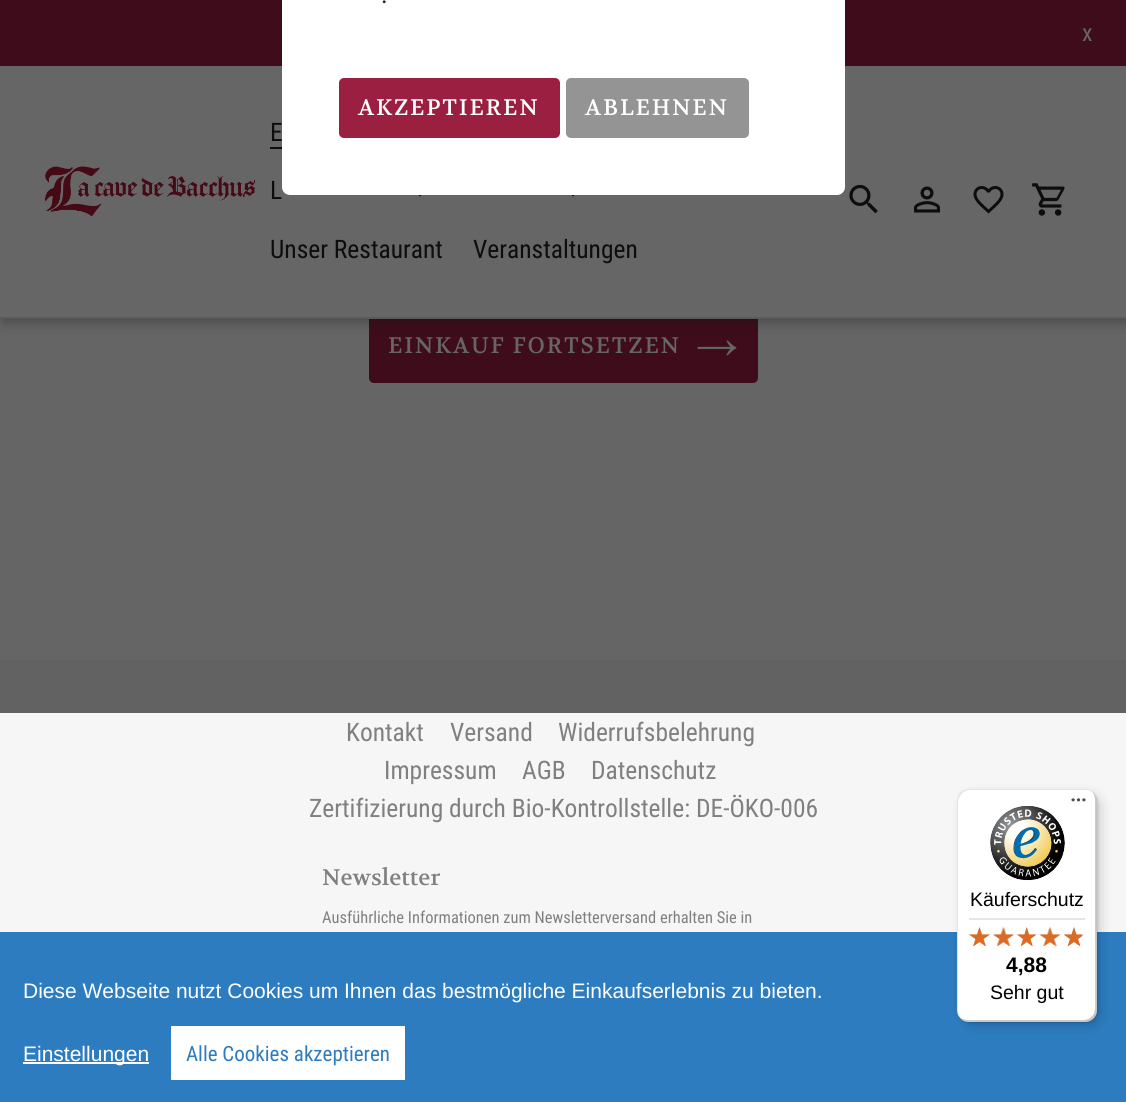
import math
import cairocffi as cairo

surface = cairo.ImageSurface(cairo.FORMAT_RGB24, 1126, 1102)
cr = cairo.Context(surface)
options = cairo.FontOptions()
options.set_hint_metrics(cairo.HINT_METRICS_OFF)
options.set_hint_style(cairo.HINT_STYLE_NONE)
cr.set_font_options(options)
cr.set_miter_limit(4)


def use_color(code):
    cr.set_source_rgb(*(v / 255 for v in bytes.fromhex(code[-6:])))


def spaced_text(x, y, s, letter, word):
    cr.move_to(x, y)
    for ch in s:
        cr.show_text(ch)
        cr.rel_move_to(letter + word * (ch == ' '), 0)


def round_rect(x, y, w, h, r):
    cr.new_sub_path()
    for i, (u, v) in enumerate([(x + w - r, y + h - r), (x + r, y + h - r), (x + r, y + r), (x + w - r, y + r)]):
        cr.arc(u, v, r, i * math.pi / 2, (i + 1) * math.pi / 2)
    cr.close_path()


def shadow(x, y, w, h, r, blur, alpha):
    cr.push_group_with_content(cairo.CONTENT_ALPHA)
    cr.set_operator(cairo.OPERATOR_SOURCE)
    for i in range(15, -16, -2):
        e = blur * i / 6
        if min(w, h) + 2 * e > 0:
            cr.set_source_rgba(0, 0, 0, alpha * math.erfc((i - 1) / 8.5) / 2)
            round_rect(x - e, y - e, w + 2 * e, h + 2 * e, max(0, min(r + e + blur * .6, min(w, h) / 2 + e)))
            cr.fill()
    cr.mask(cr.pop_group())


def picture(path, x, y, w, h):
    cr.save()
    cr.set_source_surface(cairo.ImageSurface.create_from_png(path), x, y)
    cr.rectangle(x, y, w, h)
    cr.fill()
    cr.restore()


use_color("#656565")
cr.paint()
use_color("#3e0c1a")
round_rect(369, 314, 389, 69, 5)
cr.fill()
picture("img7.png", 697, 340, 40, 16)
use_color("#0f1416")
shadow(3, 6, 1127, 318, 0, 6, 0.28)
shadow(0, 0, 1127, 318, 0, 3, 0.14)
use_color("#666666")
cr.rectangle(0, 66, 1126, 251)
cr.fill()
use_color("#3e0c1a")
cr.rectangle(0, 0, 1126, 66)
cr.fill()
use_color("#ffffff")
round_rect(282, -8, 563, 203, 8)
cr.fill()
cr.select_font_face("Roboto Condensed")
cr.set_font_size(25.5)
use_color("#212121")
cr.move_to(381, 3)
cr.show_text(".")
use_color("#9b1f41")
round_rect(339, 78, 221, 60, 5)
cr.fill()
cr.select_font_face("Volkhov")
cr.set_font_size(22.5)
use_color("#ffffff")
spaced_text(358, 115, "AKZEPTIEREN", 1.75, 0)
use_color("#949494")
round_rect(566, 78, 183, 60, 5)
cr.fill()
use_color("#ffffff")
spaced_text(585, 115, "ABLEHNEN", 1.75, 0)
use_color("#5a5a5a")
cr.rectangle(0, 317, 1126, 2)
cr.fill()
cr.select_font_face("Roboto Condensed")
cr.set_font_size(24)
use_color("#666666")
cr.move_to(1082, 41)
cr.show_text("x")
picture("img1.png", 45, 166, 210, 50)
cr.set_font_size(25.5)
use_color("#0d0d0d")
cr.move_to(270, 141)
cr.show_text("E")
cr.rectangle(270, 147, 12, 2)
cr.fill()
cr.move_to(270, 199)
cr.show_text("L")
picture("img2.png", 418, 195, 4, 2)
picture("img2.png", 571, 195, 4, 2)
cr.move_to(270, 258)
cr.show_text("Unser Restaurant")
cr.move_to(473, 258)
cr.show_text("Veranstaltungen")
picture("img3.png", 849, 184, 29, 30)
picture("img4.png", 914, 186, 26, 27)
picture("img5.png", 973, 186, 31, 28)
picture("img6.png", 1032, 183, 33, 33)
cr.select_font_face("Volkhov")
cr.set_font_size(22.5)
use_color("#666666")
spaced_text(388, 353, "EINKAUF FORTSETZEN", 1.75, 0)
use_color("#f6f6f6")
cr.rectangle(0, 713, 1126, 219)
cr.fill()
use_color("#626262")
cr.rectangle(0, 660, 1126, 53)
cr.fill()
cr.select_font_face("Roboto Condensed")
cr.set_font_size(25.5)
use_color("#808080")
cr.move_to(346, 741)
cr.show_text("Kontakt")
cr.move_to(450, 741)
cr.show_text("Versand")
cr.move_to(558, 741)
cr.show_text("Widerrufsbelehrung")
cr.move_to(384, 779)
cr.show_text("Impressum")
cr.move_to(522, 779)
cr.show_text("AGB")
cr.move_to(591, 779)
cr.show_text("Datenschutz")
cr.move_to(309, 817)
cr.show_text("Zertifizierung durch Bio-Kontrollstelle: DE-ÖKO-006")
cr.select_font_face("Volkhov")
cr.set_font_size(22.5)
cr.move_to(322, 885)
cr.show_text("Newsletter")
cr.select_font_face("Roboto Condensed")
cr.set_font_size(16.5)
cr.move_to(322, 923)
cr.show_text("Ausführliche Informationen zum Newsletterversand erhalten Sie in")
use_color("#2c7cbf")
cr.rectangle(0, 932, 1126, 170)
cr.fill()
use_color("#000000")
shadow(962, 794, 139, 232, 12, 6, 0.15)
shadow(959, 791, 139, 232, 12, 1.5, 0.15)
use_color("#ffffff")
round_rect(957, 789, 140, 233, 12)
cr.fill()
cr.set_source_rgba(0, 0, 0, 0.1)
cr.new_path()
cr.move_to(970, 790)
cr.line_to(1086, 790)
cr.curve_to(1089, 790, 1092, 791, 1094, 793)
cr.curve_to(1092, 791, 1089, 789, 1085, 789)
cr.line_to(969, 789)
cr.curve_to(962, 789, 957, 794, 957, 801)
cr.line_to(957, 1010)
cr.curve_to(957, 1014, 959, 1017, 961, 1019)
cr.curve_to(959, 1017, 958, 1014, 958, 1011)
cr.line_to(958, 802)
cr.curve_to(958, 796, 964, 790, 970, 790)
cr.close_path()
cr.fill()
cr.set_source_rgba(0, 0, 0, 0.2)
cr.new_path()
cr.move_to(958, 1015)
cr.curve_to(960, 1019, 964, 1022, 969, 1022)
cr.line_to(1085, 1022)
cr.curve_to(1092, 1022, 1097, 1017, 1097, 1010)
cr.line_to(1097, 801)
cr.curve_to(1097, 796, 1094, 792, 1090, 790)
cr.curve_to(1093, 792, 1095, 796, 1095, 800)
cr.line_to(1095, 1008)
cr.curve_to(1095, 1015, 1090, 1020, 1083, 1020)
cr.line_to(968, 1020)
cr.curve_to(964, 1020, 960, 1018, 958, 1015)
cr.close_path()
cr.fill()
cr.set_source_rgba(0.196, 0.196, 0.196, 0.2)
cr.new_path()
cr.move_to(960, 1018)
cr.curve_to(962, 1020, 965, 1022, 969, 1022)
cr.line_to(1085, 1022)
cr.curve_to(1092, 1022, 1097, 1017, 1097, 1010)
cr.line_to(1097, 801)
cr.curve_to(1097, 797, 1095, 794, 1093, 792)
cr.curve_to(1095, 794, 1096, 797, 1096, 800)
cr.line_to(1096, 1009)
cr.curve_to(1096, 1015, 1090, 1021, 1084, 1021)
cr.line_to(968, 1021)
cr.curve_to(965, 1021, 962, 1020, 960, 1018)
cr.close_path()
cr.fill()
cr.set_source_rgba(1, 1, 1, 0.3)
cr.new_path()
cr.move_to(959, 1016)
cr.curve_to(961, 1020, 964, 1022, 969, 1022)
cr.line_to(1085, 1022)
cr.curve_to(1092, 1022, 1097, 1017, 1097, 1010)
cr.line_to(1097, 801)
cr.curve_to(1097, 796, 1095, 793, 1091, 791)
cr.curve_to(1094, 793, 1096, 796, 1096, 800)
cr.line_to(1096, 1009)
cr.curve_to(1096, 1015, 1090, 1021, 1084, 1021)
cr.line_to(968, 1021)
cr.curve_to(964, 1021, 961, 1019, 959, 1016)
cr.close_path()
cr.fill()
picture("img8.png", 1071, 798, 15, 4)
picture("img9.png", 990, 806, 75, 75)
cr.select_font_face("Liberation Sans")
cr.set_font_size(19.5)
use_color("#000000")
cr.move_to(970, 906)
cr.show_text("Käuferschutz")
use_color("#e5e5e5")
cr.rectangle(969, 918, 116, 2)
cr.fill()
picture("img10.png", 969, 927, 21, 19)
picture("img11.png", 993, 927, 21, 19)
picture("img12.png", 1017, 927, 19, 19)
picture("img13.png", 1039, 927, 22, 19)
picture("img14.png", 1064, 927, 20, 19)
picture("img15.png", 969, 927, 21, 20)
picture("img16.png", 993, 927, 21, 19)
picture("img17.png", 1017, 927, 20, 20)
picture("img18.png", 1039, 927, 22, 19)
picture("img19.png", 1064, 927, 18, 20)
cr.select_font_face("Liberation Sans", cairo.FONT_SLANT_NORMAL, cairo.FONT_WEIGHT_BOLD)
cr.set_font_size(21)
use_color("#000000")
cr.move_to(1006, 972)
cr.show_text("4,88")
cr.select_font_face("Liberation Sans")
cr.set_font_size(19.5)
cr.move_to(990, 999)
cr.show_text("Sehr gut")
cr.set_font_size(21)
use_color("#ffffff")
cr.move_to(23, 998)
cr.show_text("Diese Webseite nutzt Cookies um Ihnen das bestmögliche Einkaufserlebnis zu bieten.")
cr.rectangle(23, 1062, 126, 2)
cr.fill()
cr.move_to(23, 1061)
cr.show_text("Einstellungen")
cr.rectangle(171, 1026, 234, 54)
cr.fill()
cr.select_font_face("Roboto Condensed")
use_color("#2c7cbf")
cr.move_to(186, 1061)
cr.show_text("Alle Cookies akzeptieren")
surface.write_to_png("result.png")
